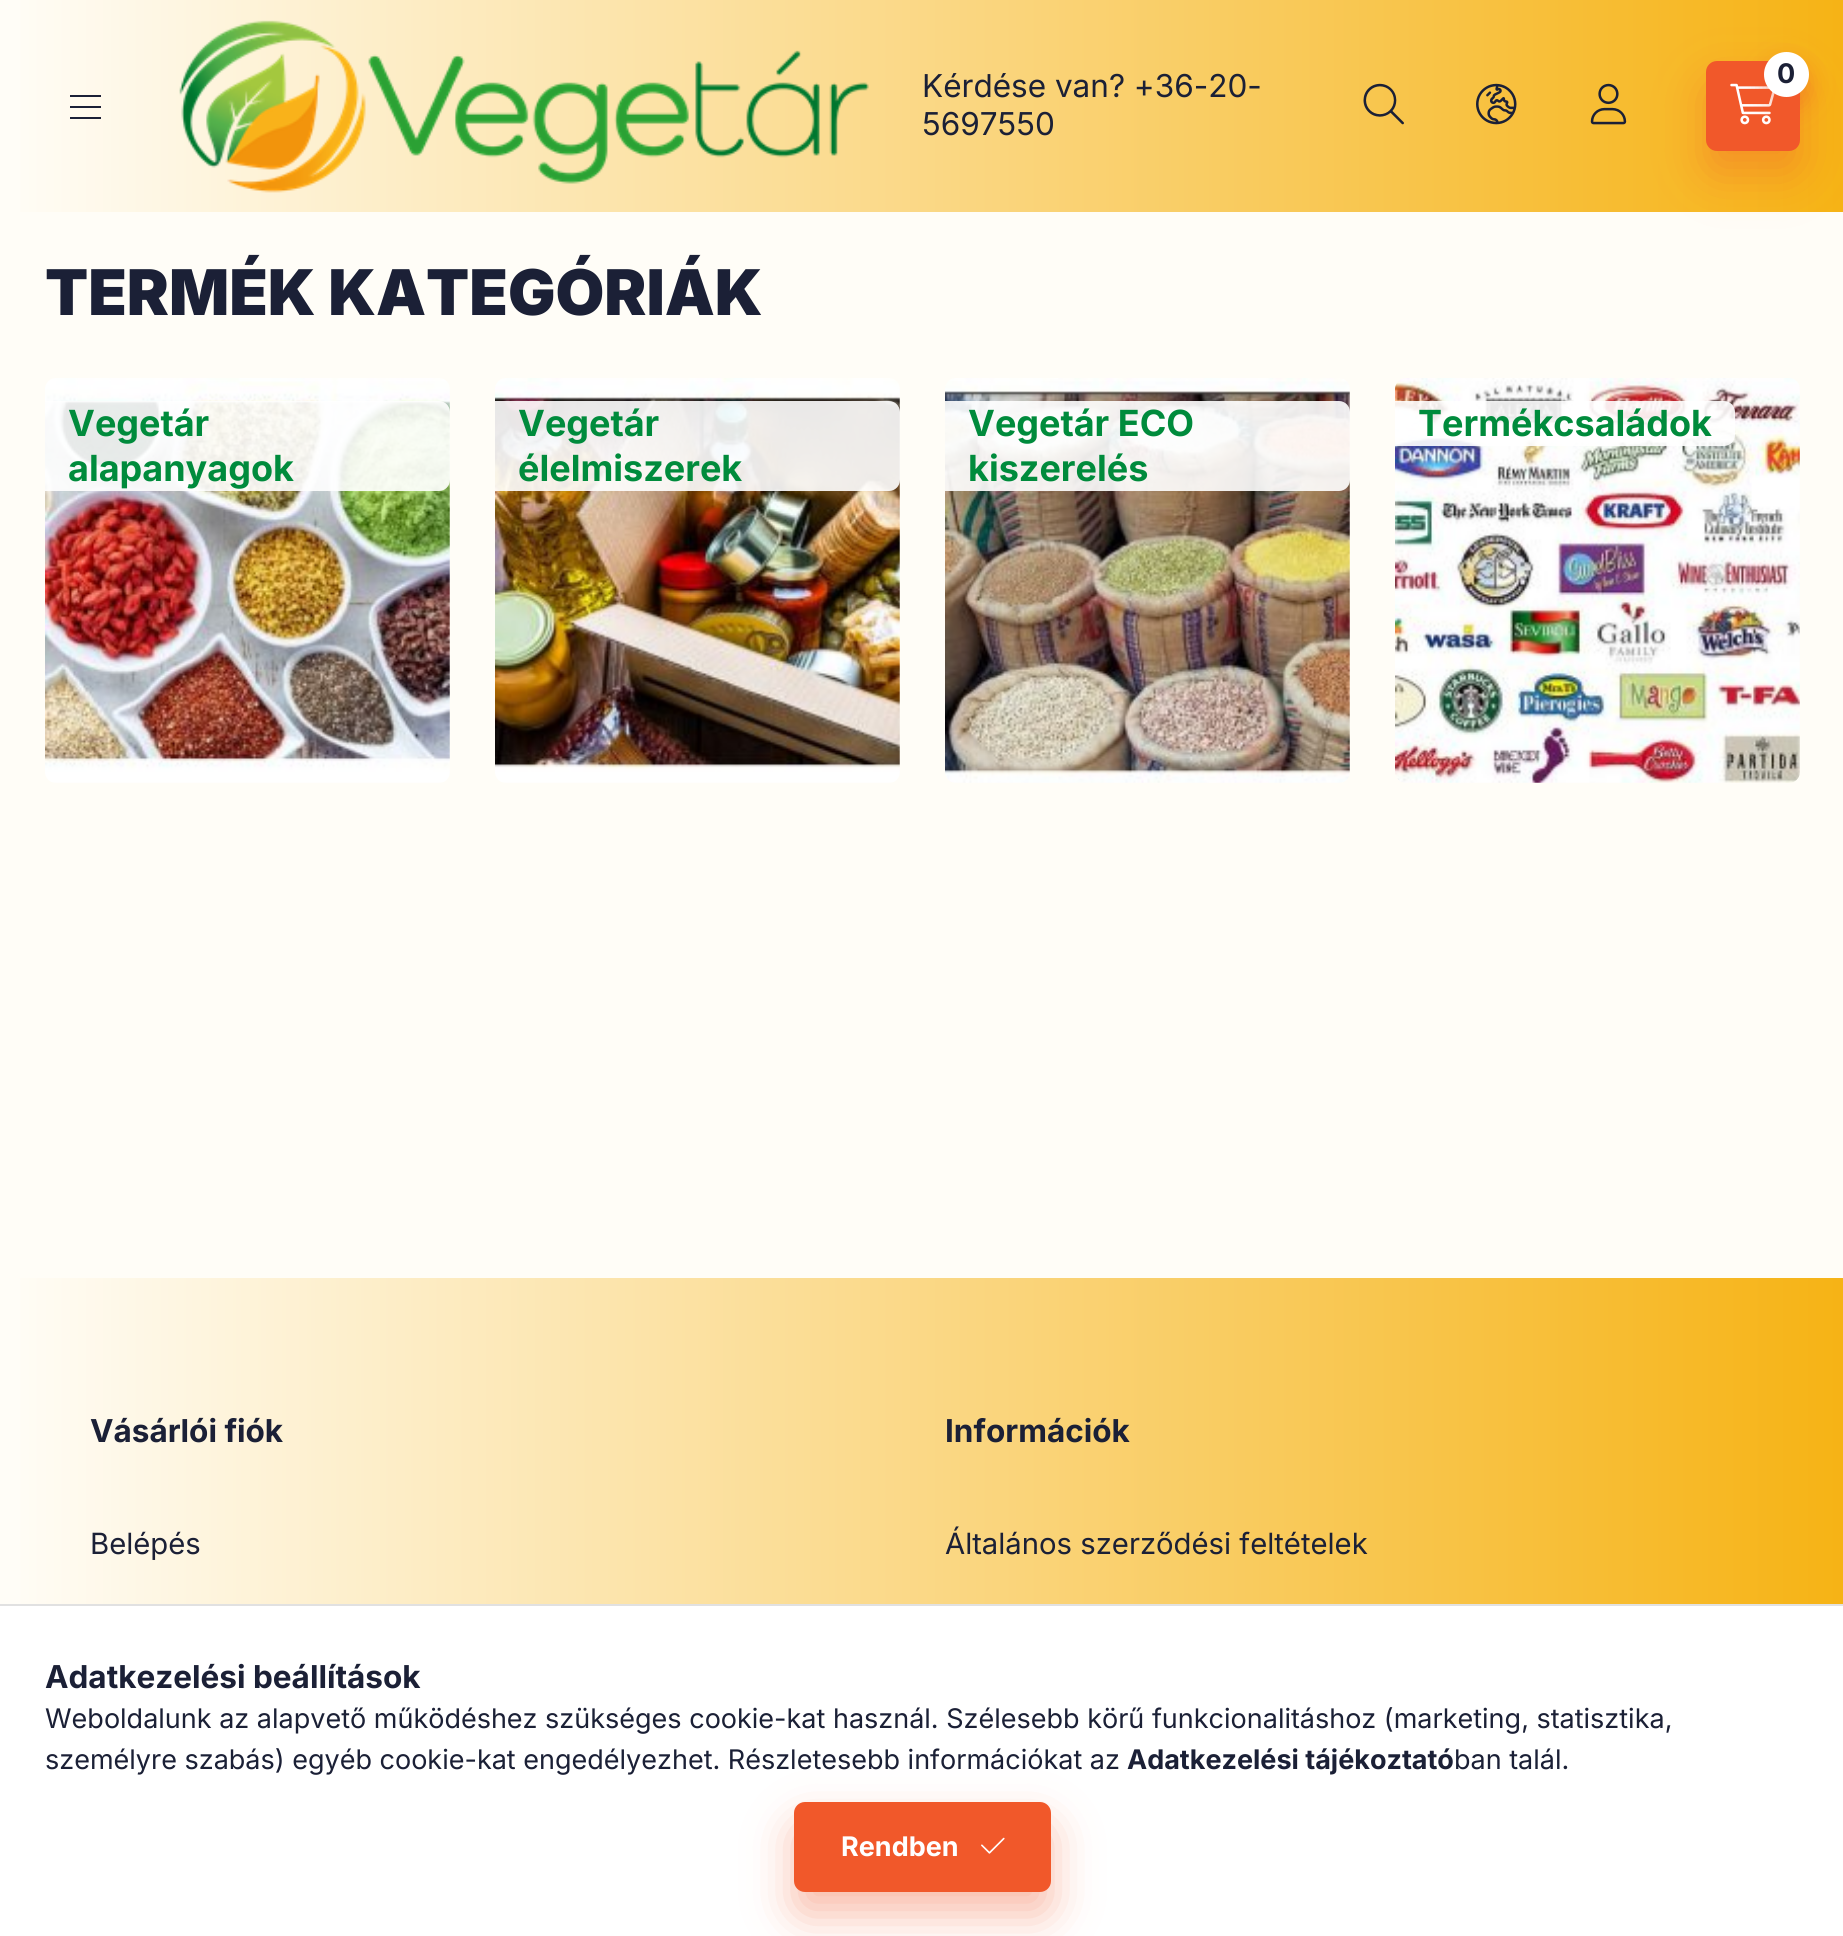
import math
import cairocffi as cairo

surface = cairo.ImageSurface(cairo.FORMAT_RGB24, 1843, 1936)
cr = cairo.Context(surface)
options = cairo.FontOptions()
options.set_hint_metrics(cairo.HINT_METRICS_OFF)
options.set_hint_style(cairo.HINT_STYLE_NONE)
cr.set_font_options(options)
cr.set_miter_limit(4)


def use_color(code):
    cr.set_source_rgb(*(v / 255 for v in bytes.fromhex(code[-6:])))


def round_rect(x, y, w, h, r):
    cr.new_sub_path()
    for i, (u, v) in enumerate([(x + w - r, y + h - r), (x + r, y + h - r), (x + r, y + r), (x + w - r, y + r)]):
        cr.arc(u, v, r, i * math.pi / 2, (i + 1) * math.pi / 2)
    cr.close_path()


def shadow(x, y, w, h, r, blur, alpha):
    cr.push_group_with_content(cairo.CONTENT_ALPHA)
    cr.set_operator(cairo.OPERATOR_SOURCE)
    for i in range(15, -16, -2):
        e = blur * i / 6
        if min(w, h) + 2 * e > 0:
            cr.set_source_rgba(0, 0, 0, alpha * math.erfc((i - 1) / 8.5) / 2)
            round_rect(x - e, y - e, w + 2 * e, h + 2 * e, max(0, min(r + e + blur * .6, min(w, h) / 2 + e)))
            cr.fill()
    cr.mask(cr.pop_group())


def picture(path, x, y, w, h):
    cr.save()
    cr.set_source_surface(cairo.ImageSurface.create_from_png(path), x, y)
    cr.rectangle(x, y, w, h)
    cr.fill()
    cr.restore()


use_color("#fffdf7")
cr.paint()
gradient = cairo.LinearGradient(0, 969, 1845, 969)
gradient.add_color_stop_rgba(0, 1, 0.992, 0.969, 1)
gradient.add_color_stop_rgba(1, 0.965, 0.702, 0.082, 1)
cr.set_source(gradient)
cr.rectangle(20, 0, 1823, 212)
cr.fill()
use_color("#1b2036")
cr.rectangle(70, 95, 31, 2)
cr.fill()
cr.rectangle(70, 106, 31, 2)
cr.fill()
cr.rectangle(70, 117, 31, 2)
cr.fill()
picture("img1.png", 179, 20, 690, 173)
cr.select_font_face("Inter")
cr.set_font_size(31.5)
cr.move_to(922, 97)
cr.show_text("Kérdése van? +36-20-")
cr.move_to(922, 135)
cr.show_text("5697550")
use_color("#f1582a")
shadow(1706, 83, 94, 90, 11, 22.5, 0.4)
use_color("#f1582a")
round_rect(1706, 61, 94, 90, 11)
cr.fill()
picture("img2.png", 1730, 83, 45, 42)
use_color("#f1582a")
shadow(1764, 63, 45, 45, 22.5, 11, 0.4)
use_color("#ffffff")
cr.arc(1786.5, 74.5, 22.5, 0, 2 * math.pi)
cr.fill()
cr.select_font_face("Inter", cairo.FONT_SLANT_NORMAL, cairo.FONT_WEIGHT_BOLD)
cr.set_font_size(27)
use_color("#1b2036")
cr.move_to(1777, 83)
cr.show_text("0")
picture("img3.png", 1363, 83, 41, 42)
picture("img4.png", 1476, 83, 41, 42)
picture("img5.png", 1590, 83, 37, 42)
cr.select_font_face("Inter Black")
cr.set_font_size(63)
cr.move_to(45, 315)
cr.show_text("TERMÉK KATEGÓRIÁK")
picture("img6.png", 45, 378, 405, 405)
cr.set_source_rgba(1, 1, 1, 0.9)
cr.new_path()
cr.move_to(45, 401)
cr.line_to(439, 401)
cr.curve_to(445, 401, 450, 406, 450, 412)
cr.line_to(450, 480)
cr.curve_to(450, 486, 445, 491, 439, 491)
cr.line_to(45, 491)
cr.close_path()
cr.fill()
cr.select_font_face("Inter", cairo.FONT_SLANT_NORMAL, cairo.FONT_WEIGHT_BOLD)
cr.set_font_size(36)
use_color("#008b3c")
cr.move_to(68, 436)
cr.show_text("Vegetár")
cr.move_to(68, 481)
cr.show_text("alapanyagok")
picture("img7.png", 495, 378, 405, 405)
cr.set_source_rgba(1, 1, 1, 0.9)
cr.new_path()
cr.move_to(495, 401)
cr.line_to(889, 401)
cr.curve_to(895, 401, 900, 406, 900, 412)
cr.line_to(900, 480)
cr.curve_to(900, 486, 895, 491, 889, 491)
cr.line_to(495, 491)
cr.close_path()
cr.fill()
use_color("#008b3c")
cr.move_to(518, 436)
cr.show_text("Vegetár")
cr.move_to(518, 481)
cr.show_text("élelmiszerek")
picture("img8.png", 945, 378, 405, 405)
cr.set_source_rgba(1, 1, 1, 0.9)
cr.new_path()
cr.move_to(945, 401)
cr.line_to(1339, 401)
cr.curve_to(1345, 401, 1350, 406, 1350, 412)
cr.line_to(1350, 480)
cr.curve_to(1350, 486, 1345, 491, 1339, 491)
cr.line_to(945, 491)
cr.close_path()
cr.fill()
use_color("#008b3c")
cr.move_to(968, 436)
cr.show_text("Vegetár ECO")
cr.move_to(968, 481)
cr.show_text("kiszerelés")
picture("img9.png", 1395, 378, 405, 405)
cr.set_source_rgba(1, 1, 1, 0.9)
cr.new_path()
cr.move_to(1395, 401)
cr.line_to(1724, 401)
cr.curve_to(1730, 401, 1735, 406, 1735, 412)
cr.line_to(1735, 435)
cr.curve_to(1735, 441, 1730, 446, 1724, 446)
cr.line_to(1395, 446)
cr.close_path()
cr.fill()
use_color("#008b3c")
cr.move_to(1418, 436)
cr.show_text("Termékcsaládok")
gradient = cairo.LinearGradient(0, 969, 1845, 969)
gradient.add_color_stop_rgba(0, 1, 0.992, 0.969, 1)
gradient.add_color_stop_rgba(1, 0.965, 0.702, 0.082, 1)
cr.set_source(gradient)
cr.rectangle(20, 1278, 1823, 326)
cr.fill()
cr.set_font_size(31.5)
use_color("#1b2036")
cr.move_to(90, 1442)
cr.show_text("Vásárlói fiók")
cr.select_font_face("Inter")
cr.set_font_size(29.25)
cr.move_to(90, 1554)
cr.show_text("Belépés")
cr.select_font_face("Inter", cairo.FONT_SLANT_NORMAL, cairo.FONT_WEIGHT_BOLD)
cr.set_font_size(31.5)
cr.move_to(945, 1442)
cr.show_text("Információk")
cr.select_font_face("Inter")
cr.set_font_size(29.25)
cr.move_to(945, 1554)
cr.show_text("Általános szerződési feltételek")
use_color("#ffffff")
cr.rectangle(0, 1606, 1843, 330)
cr.fill()
use_color("#e1e1e1")
cr.rectangle(0, 1604, 1843, 2)
cr.fill()
cr.select_font_face("Inter", cairo.FONT_SLANT_NORMAL, cairo.FONT_WEIGHT_BOLD)
cr.set_font_size(31.5)
use_color("#1b2036")
cr.move_to(45, 1688)
cr.show_text("Adatkezelési beállítások")
cr.select_font_face("Inter")
cr.set_font_size(27)
cr.move_to(45, 1728)
cr.show_text("Weboldalunk az alapvető működéshez szükséges cookie-kat használ. Szélesebb körű funkcionalitáshoz (marketing, statisztika,")
cr.move_to(45, 1769)
cr.show_text("személyre szabás) egyéb cookie-kat engedélyezhet. Részletesebb információkat az")
cr.select_font_face("Inter", cairo.FONT_SLANT_NORMAL, cairo.FONT_WEIGHT_BOLD)
cr.move_to(1127, 1769)
cr.show_text("Adatkezelési tájékoztató")
cr.select_font_face("Inter")
cr.move_to(1454, 1769)
cr.show_text("ban talál.")
use_color("#f1582a")
shadow(794, 1825, 257, 90, 11, 22.5, 0.4)
use_color("#f1582a")
round_rect(795, 1803, 255, 88, 10)
cr.fill_preserve()
cr.stroke()
cr.select_font_face("Inter", cairo.FONT_SLANT_NORMAL, cairo.FONT_WEIGHT_BOLD)
use_color("#ffffff")
cr.move_to(841, 1856)
cr.show_text("Rendben")
picture("img10.png", 981, 1837, 24, 17)
surface.write_to_png("result.png")
